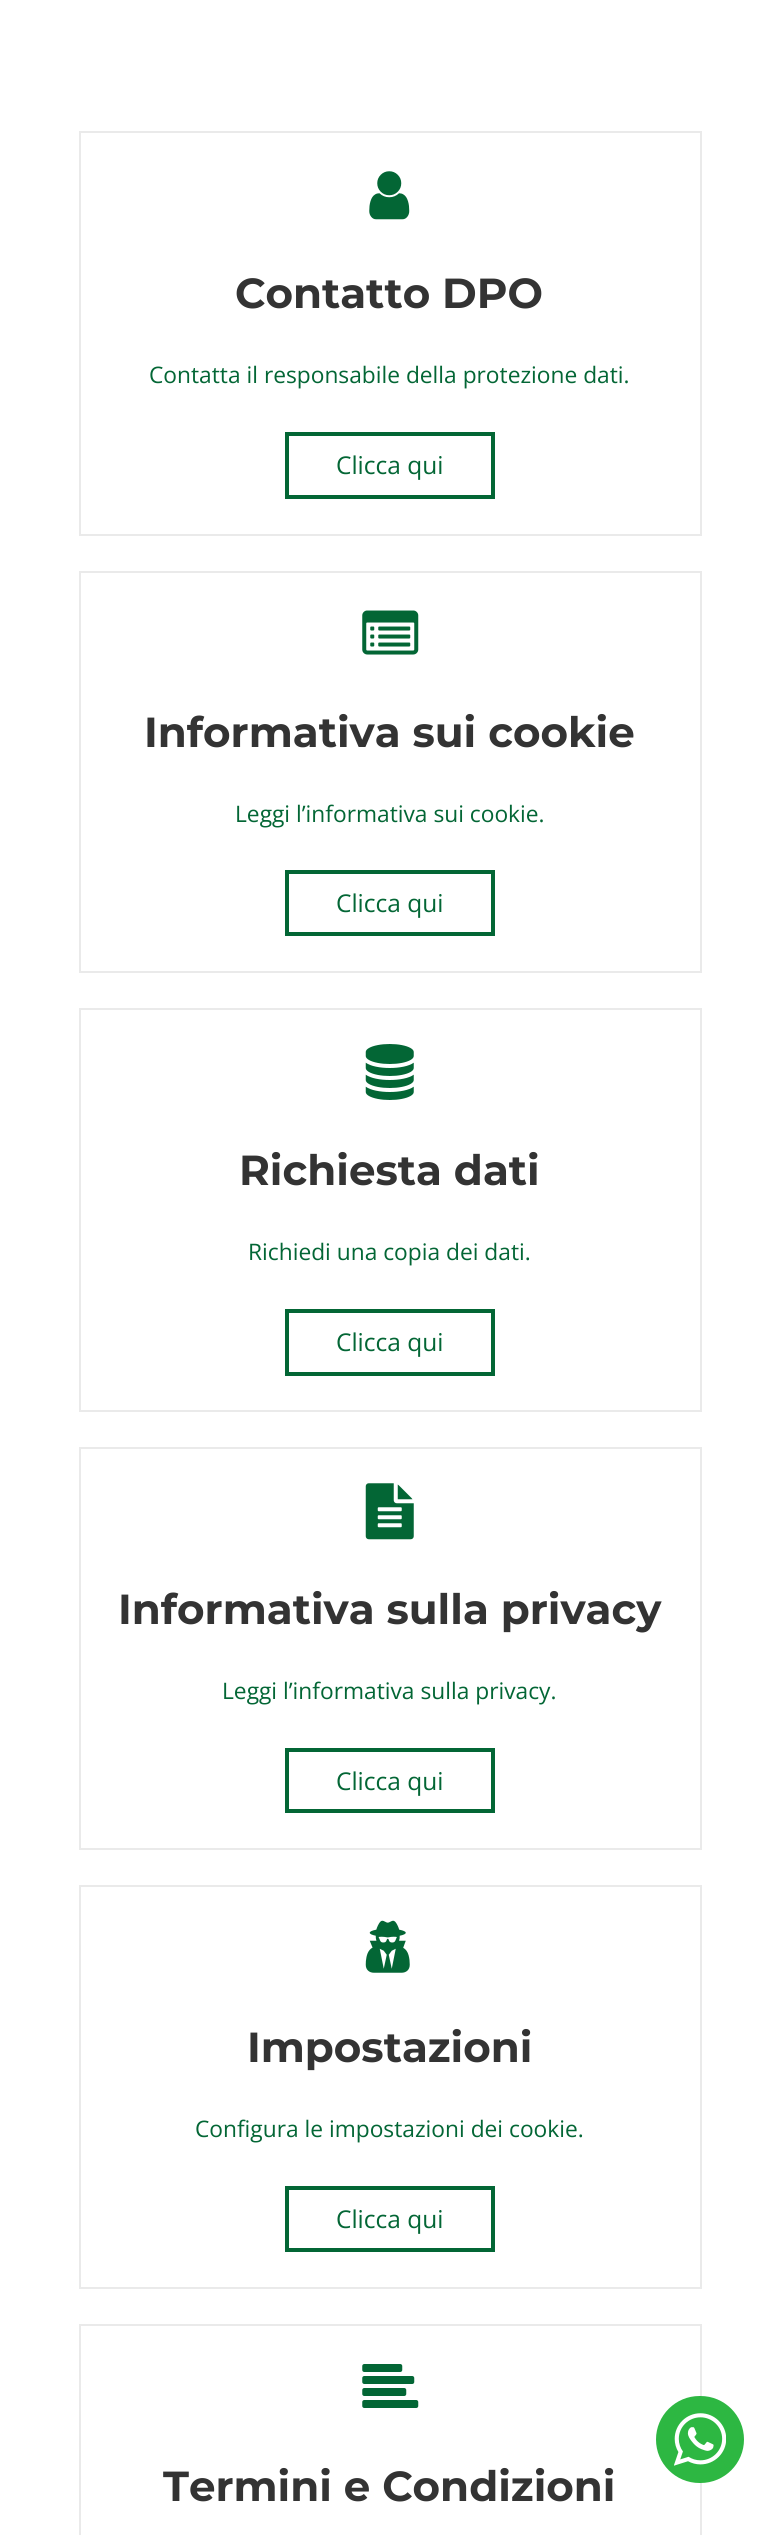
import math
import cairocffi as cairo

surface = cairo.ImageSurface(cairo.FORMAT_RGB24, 778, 2535)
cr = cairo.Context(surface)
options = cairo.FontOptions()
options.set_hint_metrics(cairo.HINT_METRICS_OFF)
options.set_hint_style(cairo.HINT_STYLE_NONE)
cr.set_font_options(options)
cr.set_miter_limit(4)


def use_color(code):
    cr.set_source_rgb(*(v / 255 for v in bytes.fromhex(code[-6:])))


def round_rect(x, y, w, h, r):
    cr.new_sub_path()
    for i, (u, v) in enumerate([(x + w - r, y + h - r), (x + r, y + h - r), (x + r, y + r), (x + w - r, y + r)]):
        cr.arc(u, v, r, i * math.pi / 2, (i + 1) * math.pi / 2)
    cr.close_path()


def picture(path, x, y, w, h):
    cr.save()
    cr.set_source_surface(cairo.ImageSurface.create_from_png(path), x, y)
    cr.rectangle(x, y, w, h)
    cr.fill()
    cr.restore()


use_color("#ffffff")
cr.paint()
cr.rectangle(80, 132, 621, 403)
use_color("#eaeaea")
cr.stroke()
picture("img1.png", 369, 171, 41, 49)
cr.select_font_face("Montserrat", cairo.FONT_SLANT_NORMAL, cairo.FONT_WEIGHT_BOLD)
cr.set_font_size(42)
use_color("#333333")
cr.move_to(235, 308)
cr.show_text("Contatto DPO")
cr.select_font_face("Open Sans")
cr.set_font_size(22.75)
use_color("#036635")
cr.move_to(149, 383)
cr.show_text("Contatta il responsabile della protezione dati.")
cr.rectangle(287, 434, 206, 63)
cr.set_line_width(4)
cr.stroke()
cr.set_font_size(24.5)
cr.move_to(336, 474)
cr.show_text("Clicca qui")
cr.rectangle(80, 572, 621, 400)
use_color("#eaeaea")
cr.set_line_width(2)
cr.stroke()
picture("img2.png", 362, 610, 57, 45)
cr.select_font_face("Montserrat", cairo.FONT_SLANT_NORMAL, cairo.FONT_WEIGHT_BOLD)
cr.set_font_size(42)
use_color("#333333")
cr.move_to(144, 747)
cr.show_text("Informativa sui cookie")
cr.select_font_face("Open Sans")
cr.set_font_size(22.75)
use_color("#036635")
cr.move_to(235, 822)
cr.show_text("Leggi l’informativa sui cookie.")
cr.rectangle(287, 872, 206, 62)
cr.set_line_width(4)
cr.stroke()
cr.set_font_size(24.5)
cr.move_to(336, 912)
cr.show_text("Clicca qui")
cr.rectangle(80, 1009, 621, 402)
use_color("#eaeaea")
cr.set_line_width(2)
cr.stroke()
picture("img3.png", 365, 1044, 49, 56)
cr.select_font_face("Montserrat", cairo.FONT_SLANT_NORMAL, cairo.FONT_WEIGHT_BOLD)
cr.set_font_size(42)
use_color("#333333")
cr.move_to(239, 1185)
cr.show_text("Richiesta dati")
cr.select_font_face("Open Sans")
cr.set_font_size(22.75)
use_color("#036635")
cr.move_to(248, 1260)
cr.show_text("Richiedi una copia dei dati.")
cr.rectangle(287, 1311, 206, 63)
cr.set_line_width(4)
cr.stroke()
cr.set_font_size(24.5)
cr.move_to(336, 1351)
cr.show_text("Clicca qui")
cr.rectangle(80, 1448, 621, 401)
use_color("#eaeaea")
cr.set_line_width(2)
cr.stroke()
picture("img4.png", 365, 1483, 49, 57)
cr.select_font_face("Montserrat", cairo.FONT_SLANT_NORMAL, cairo.FONT_WEIGHT_BOLD)
cr.set_font_size(42)
use_color("#333333")
cr.move_to(118, 1624)
cr.show_text("Informativa sulla privacy")
cr.select_font_face("Open Sans")
cr.set_font_size(22.75)
use_color("#036635")
cr.move_to(222, 1699)
cr.show_text("Leggi l’informativa sulla privacy.")
cr.rectangle(287, 1750, 206, 61)
cr.set_line_width(4)
cr.stroke()
cr.set_font_size(24.5)
cr.move_to(336, 1790)
cr.show_text("Clicca qui")
cr.rectangle(80, 1886, 621, 402)
use_color("#eaeaea")
cr.set_line_width(2)
cr.stroke()
picture("img5.png", 365, 1920, 45, 53)
cr.select_font_face("Montserrat", cairo.FONT_SLANT_NORMAL, cairo.FONT_WEIGHT_BOLD)
cr.set_font_size(42)
use_color("#333333")
cr.move_to(247, 2062)
cr.show_text("Impostazioni")
cr.select_font_face("Open Sans")
cr.set_font_size(22.75)
use_color("#036635")
cr.move_to(195, 2137)
cr.show_text("Configura le impostazioni dei cookie.")
cr.rectangle(287, 2188, 206, 62)
cr.set_line_width(4)
cr.stroke()
cr.set_font_size(24.5)
cr.move_to(336, 2228)
cr.show_text("Clicca qui")
cr.rectangle(80, 2325, 621, 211)
use_color("#eaeaea")
cr.set_line_width(2)
cr.stroke()
picture("img6.png", 362, 2364, 57, 44)
cr.select_font_face("Montserrat", cairo.FONT_SLANT_NORMAL, cairo.FONT_WEIGHT_BOLD)
cr.set_font_size(42)
use_color("#333333")
cr.move_to(163, 2501)
cr.show_text("Termini e Condizioni")
use_color("#2db742")
round_rect(656, 2396, 88, 87, 43.5)
cr.fill()
picture("img7.png", 674, 2413, 52, 53)
surface.write_to_png("result.png")
